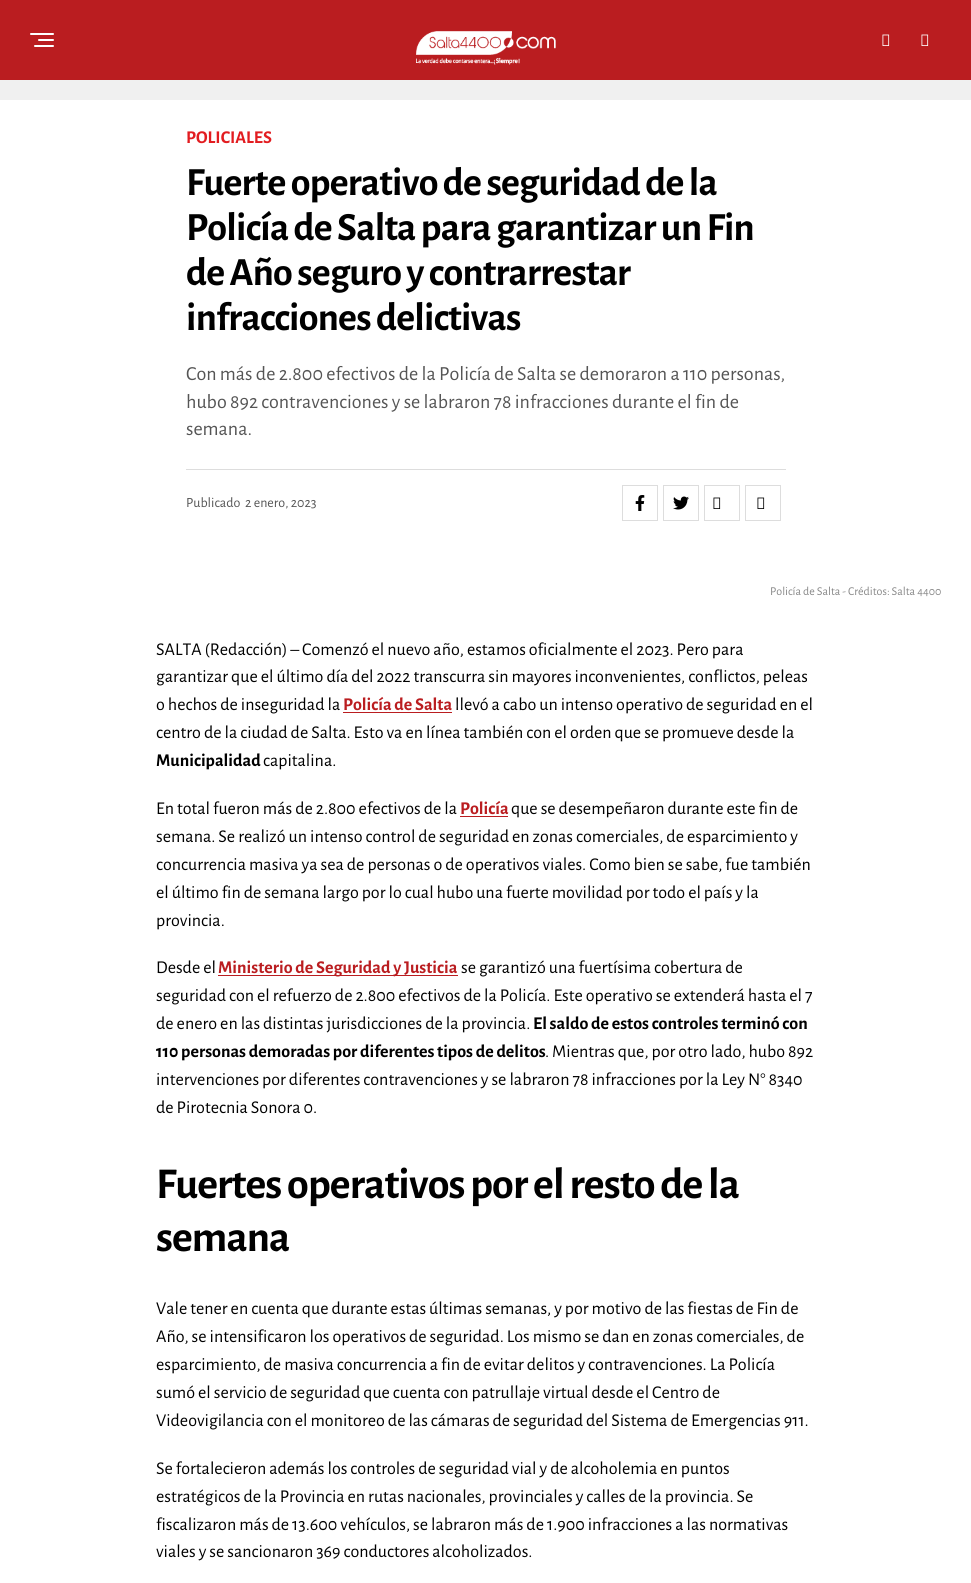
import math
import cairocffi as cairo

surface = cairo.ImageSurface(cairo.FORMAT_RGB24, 971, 1583)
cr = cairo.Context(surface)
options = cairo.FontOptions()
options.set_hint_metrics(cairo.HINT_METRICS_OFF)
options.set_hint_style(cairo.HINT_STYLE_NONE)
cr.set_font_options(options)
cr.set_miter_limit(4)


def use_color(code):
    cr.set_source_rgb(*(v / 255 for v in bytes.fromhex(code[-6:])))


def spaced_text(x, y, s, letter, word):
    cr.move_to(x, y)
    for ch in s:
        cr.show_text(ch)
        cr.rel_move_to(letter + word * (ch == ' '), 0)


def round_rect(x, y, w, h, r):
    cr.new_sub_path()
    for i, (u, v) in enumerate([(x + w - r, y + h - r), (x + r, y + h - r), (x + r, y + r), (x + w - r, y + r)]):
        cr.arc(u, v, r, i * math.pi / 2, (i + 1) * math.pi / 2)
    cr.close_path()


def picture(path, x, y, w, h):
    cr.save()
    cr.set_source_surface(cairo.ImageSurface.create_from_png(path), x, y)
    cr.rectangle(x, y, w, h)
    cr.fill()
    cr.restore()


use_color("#f0f0f0")
cr.paint()
use_color("#ba1d20")
cr.rectangle(0, 0, 971, 80)
cr.fill()
use_color("#ffffff")
round_rect(30, 33, 24, 2, 1)
cr.fill()
round_rect(38, 39, 16, 2, 1)
cr.fill()
round_rect(34, 45, 20, 2, 1)
cr.fill()
picture("img1.png", 416, 31, 140, 34)
picture("img2.png", 882, 34, 8, 12)
picture("img2.png", 921, 34, 8, 12)
cr.rectangle(0, 100, 971, 1483)
cr.fill()
cr.select_font_face("Alegreya Sans", cairo.FONT_SLANT_NORMAL, cairo.FONT_WEIGHT_BOLD)
cr.set_font_size(18)
use_color("#e21c20")
cr.move_to(186, 143)
cr.show_text("POLICIALES")
cr.set_font_size(40)
use_color("#000000")
spaced_text(186, 195, "Fuerte operativo de seguridad de la", -0.8, 0)
spaced_text(186, 240, "Policía de Salta para garantizar un Fin", -0.8, 0)
spaced_text(186, 285, "de Año seguro y contrarrestar", -0.8, 0)
spaced_text(186, 330, "infracciones delictivas", -0.8, 0)
cr.select_font_face("Alegreya Sans")
cr.set_font_size(20)
use_color("#555555")
cr.move_to(186, 380)
cr.show_text("Con más de 2.800 efectivos de la Policía de Salta se demoraron a 110 personas,")
cr.move_to(186, 408)
cr.show_text("hubo 892 contravenciones y se labraron 78 infracciones durante el fin de")
cr.move_to(186, 435)
cr.show_text("semana.")
use_color("#dddddd")
cr.rectangle(186, 469, 600, 1)
cr.fill()
cr.set_font_size(14)
use_color("#555555")
cr.move_to(186, 507)
cr.show_text("Publicado")
cr.move_to(245, 507)
cr.show_text("2 enero, 2023")
cr.rectangle(622.5, 485.5, 35, 35)
use_color("#dddddd")
cr.set_line_width(1)
cr.stroke()
picture("img3.png", 635, 495, 10, 16)
cr.rectangle(663.5, 485.5, 35, 35)
cr.stroke()
picture("img4.png", 673, 496, 16, 14)
cr.rectangle(704.5, 485.5, 35, 35)
cr.stroke()
picture("img5.png", 713, 497, 8, 12)
cr.rectangle(745.5, 485.5, 35, 35)
cr.stroke()
picture("img5.png", 757, 497, 8, 12)
cr.set_font_size(12)
use_color("#888888")
cr.move_to(770, 595)
cr.show_text("Policía de Salta - Créditos: Salta 4400")
cr.set_font_size(18)
use_color("#000000")
cr.move_to(156, 655)
cr.show_text("SALTA (Redacción) – Comenzó el nuevo año, estamos oficialmente el 2023. Pero para")
cr.move_to(156, 682)
cr.show_text("garantizar que el último día del 2022 transcurra sin mayores inconvenientes, conflictos, peleas")
cr.move_to(156, 710)
cr.show_text("o hechos de inseguridad la")
cr.select_font_face("Alegreya Sans", cairo.FONT_SLANT_NORMAL, cairo.FONT_WEIGHT_BOLD)
use_color("#ba1d20")
cr.move_to(343, 710)
cr.show_text("Policía de Salta")
cr.rectangle(343, 712, 109, 1)
cr.fill()
cr.select_font_face("Alegreya Sans")
use_color("#000000")
cr.move_to(455, 710)
cr.show_text("llevó a cabo un intenso operativo de seguridad en el")
cr.move_to(156, 738)
cr.show_text("centro de la ciudad de Salta. Esto va en línea también con el orden que se promueve desde la")
cr.select_font_face("Alegreya Sans", cairo.FONT_SLANT_NORMAL, cairo.FONT_WEIGHT_BOLD)
cr.move_to(156, 766)
cr.show_text("Municipalidad")
cr.select_font_face("Alegreya Sans")
cr.move_to(263, 766)
cr.show_text("capitalina.")
cr.move_to(156, 814)
cr.show_text("En total fueron más de 2.800 efectivos de la")
cr.select_font_face("Alegreya Sans", cairo.FONT_SLANT_NORMAL, cairo.FONT_WEIGHT_BOLD)
use_color("#ba1d20")
cr.move_to(460, 814)
cr.show_text("Policía")
cr.rectangle(460, 816, 48, 1)
cr.fill()
cr.select_font_face("Alegreya Sans")
use_color("#000000")
cr.move_to(511, 814)
cr.show_text("que se desempeñaron durante este fin de")
cr.move_to(156, 842)
cr.show_text("semana. Se realizó un intenso control de seguridad en zonas comerciales, de esparcimiento y")
cr.move_to(156, 870)
cr.show_text("concurrencia masiva ya sea de personas o de operativos viales. Como bien se sabe, fue también")
cr.move_to(156, 898)
cr.show_text("el último fin de semana largo por lo cual hubo una fuerte movilidad por todo el país y la")
cr.move_to(156, 926)
cr.show_text("provincia.")
cr.move_to(156, 973)
cr.show_text("Desde el")
use_color("#ba1d20")
cr.rectangle(218, 975, 240, 1)
cr.fill()
cr.select_font_face("Alegreya Sans", cairo.FONT_SLANT_NORMAL, cairo.FONT_WEIGHT_BOLD)
cr.move_to(218, 973)
cr.show_text("Ministerio de Seguridad y Justicia")
cr.select_font_face("Alegreya Sans")
use_color("#000000")
cr.move_to(461, 973)
cr.show_text("se garantizó una fuertísima cobertura de")
cr.move_to(156, 1001)
cr.show_text("seguridad con el refuerzo de 2.800 efectivos de la Policía. Este operativo se extenderá hasta el 7")
cr.move_to(156, 1029)
cr.show_text("de enero en las distintas jurisdicciones de la provincia.")
cr.select_font_face("Alegreya Sans", cairo.FONT_SLANT_NORMAL, cairo.FONT_WEIGHT_BOLD)
cr.move_to(533, 1029)
cr.show_text("El saldo de estos controles terminó con")
cr.move_to(156, 1057)
cr.show_text("110 personas demoradas por diferentes tipos de delitos")
cr.select_font_face("Alegreya Sans")
cr.move_to(545, 1057)
cr.show_text(". Mientras que, por otro lado, hubo 892")
cr.move_to(156, 1085)
cr.show_text("intervenciones por diferentes contravenciones y se labraron 78 infracciones por la Ley N° 8340")
cr.move_to(156, 1113)
cr.show_text("de Pirotecnia Sonora 0.")
cr.select_font_face("Alegreya Sans", cairo.FONT_SLANT_NORMAL, cairo.FONT_WEIGHT_BOLD)
cr.set_font_size(44)
spaced_text(156, 1198, "Fuertes operativos por el resto de la", -0.9, 0)
spaced_text(156, 1251, "semana", -0.9, 0)
cr.select_font_face("Alegreya Sans")
cr.set_font_size(18)
cr.move_to(156, 1314)
cr.show_text("Vale tener en cuenta que durante estas últimas semanas, y por motivo de las fiestas de Fin de")
cr.move_to(156, 1342)
cr.show_text("Año, se intensificaron los operativos de seguridad. Los mismo se dan en zonas comerciales, de")
cr.move_to(156, 1370)
cr.show_text("esparcimiento, de masiva concurrencia a fin de evitar delitos y contravenciones. La Policía")
cr.move_to(156, 1398)
cr.show_text("sumó el servicio de seguridad que cuenta con patrullaje virtual desde el Centro de")
cr.move_to(156, 1426)
cr.show_text("Videovigilancia con el monitoreo de las cámaras de seguridad del Sistema de Emergencias 911.")
cr.move_to(156, 1474)
cr.show_text("Se fortalecieron además los controles de seguridad vial y de alcoholemia en puntos")
cr.move_to(156, 1502)
cr.show_text("estratégicos de la Provincia en rutas nacionales, provinciales y calles de la provincia. Se")
cr.move_to(156, 1530)
cr.show_text("fiscalizaron más de 13.600 vehículos, se labraron más de 1.900 infracciones a las normativas")
cr.move_to(156, 1557)
cr.show_text("viales y se sancionaron 369 conductores alcoholizados.")
surface.write_to_png("result.png")
